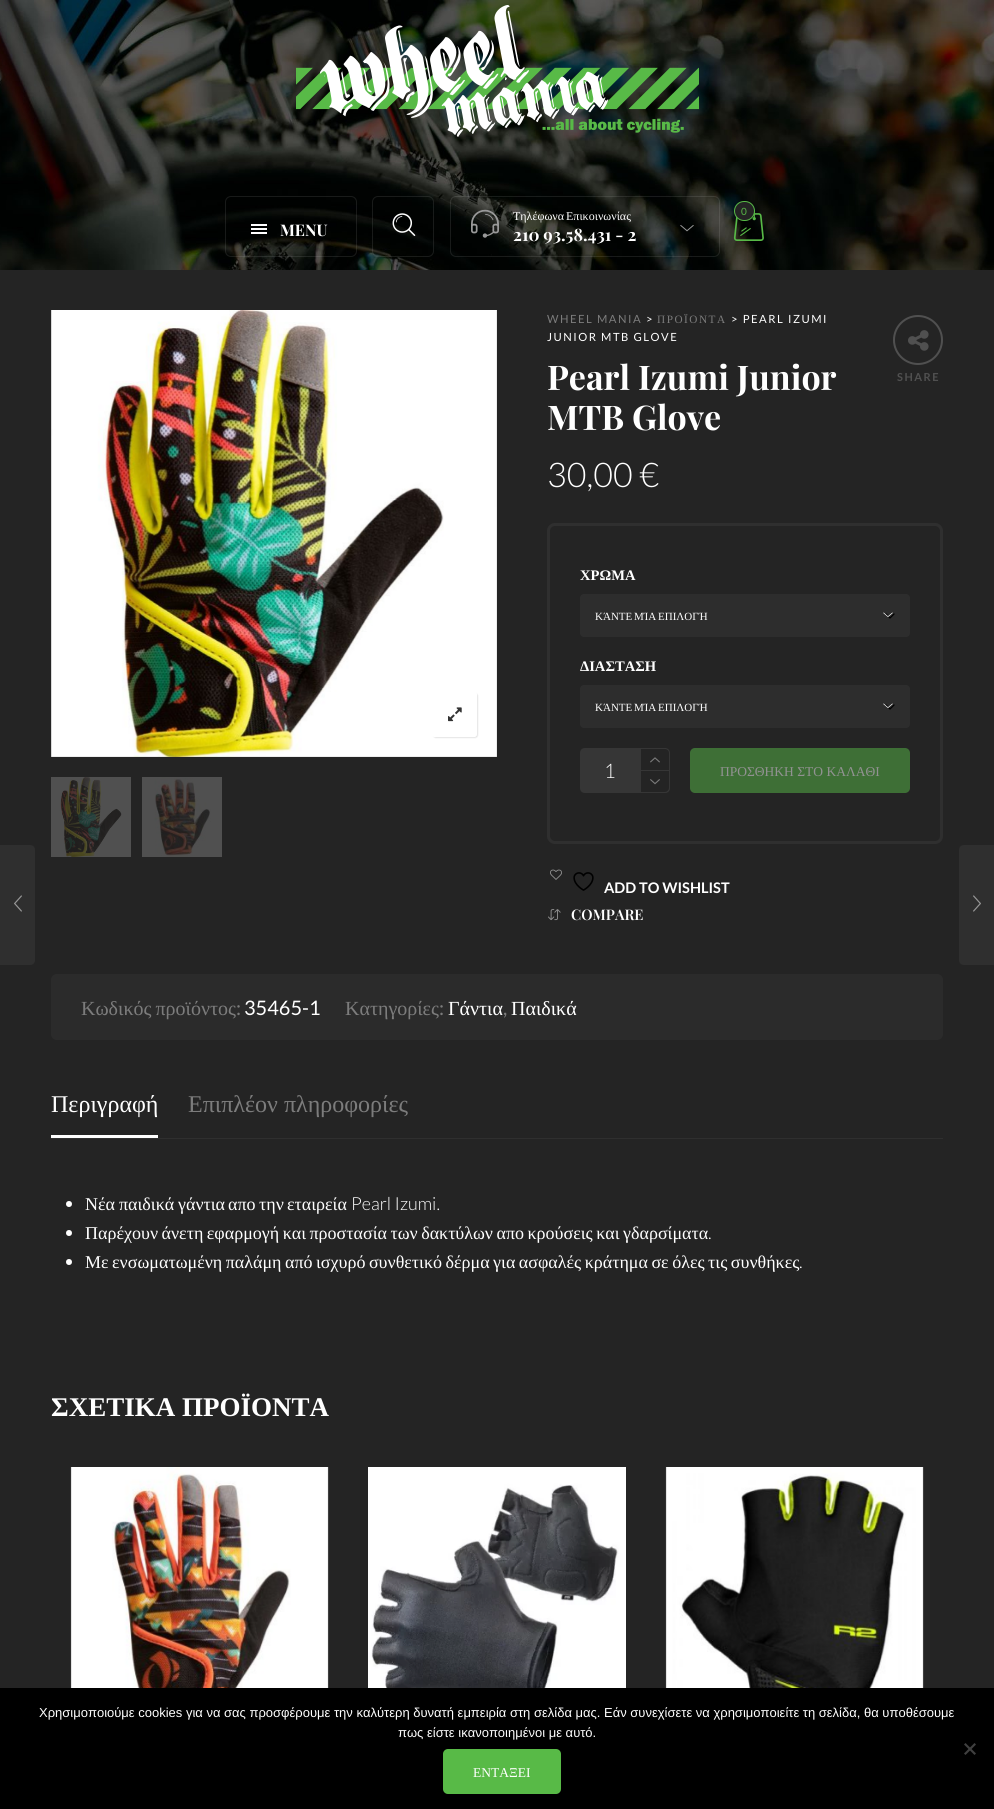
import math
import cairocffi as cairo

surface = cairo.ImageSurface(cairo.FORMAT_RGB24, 994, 1809)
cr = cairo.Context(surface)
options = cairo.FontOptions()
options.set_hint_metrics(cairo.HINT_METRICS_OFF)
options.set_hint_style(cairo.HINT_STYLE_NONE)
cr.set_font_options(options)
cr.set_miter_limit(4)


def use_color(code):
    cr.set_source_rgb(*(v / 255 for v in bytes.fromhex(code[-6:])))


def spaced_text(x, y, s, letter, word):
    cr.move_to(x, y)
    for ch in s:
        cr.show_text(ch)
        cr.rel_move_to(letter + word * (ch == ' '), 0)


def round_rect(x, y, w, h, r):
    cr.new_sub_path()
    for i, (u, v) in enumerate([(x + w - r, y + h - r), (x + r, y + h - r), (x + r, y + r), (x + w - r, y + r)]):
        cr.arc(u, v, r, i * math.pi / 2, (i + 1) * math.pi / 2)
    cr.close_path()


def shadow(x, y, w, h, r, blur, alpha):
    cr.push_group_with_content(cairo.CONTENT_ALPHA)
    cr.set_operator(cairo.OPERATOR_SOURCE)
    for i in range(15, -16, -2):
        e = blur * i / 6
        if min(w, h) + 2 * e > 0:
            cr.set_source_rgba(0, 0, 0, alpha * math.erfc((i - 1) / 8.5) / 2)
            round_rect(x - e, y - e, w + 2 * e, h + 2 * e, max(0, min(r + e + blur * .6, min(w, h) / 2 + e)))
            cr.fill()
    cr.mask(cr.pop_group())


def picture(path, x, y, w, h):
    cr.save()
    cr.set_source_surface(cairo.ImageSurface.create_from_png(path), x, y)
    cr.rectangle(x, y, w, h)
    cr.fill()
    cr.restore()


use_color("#242424")
cr.paint()
picture("img1.png", 0, 0, 994, 270)
picture("img2.png", 296, 5, 403, 132)
round_rect(225.5, 196.5, 131, 60, 5.5)
cr.set_source_rgba(0.961, 0.961, 0.961, 0.1)
cr.set_line_width(1)
cr.stroke()
picture("img3.png", 251, 224, 16, 10)
cr.select_font_face("Playfair Display", cairo.FONT_SLANT_NORMAL, cairo.FONT_WEIGHT_BOLD)
cr.set_font_size(16)
use_color("#ffffff")
cr.move_to(280, 236)
cr.show_text("MENU")
round_rect(372.5, 196.5, 61, 60, 5.5)
cr.set_source_rgba(0.961, 0.961, 0.961, 0.1)
cr.stroke()
picture("img4.png", 392, 213, 24, 23)
round_rect(450.5, 196.5, 269, 60, 5.5)
cr.stroke()
picture("img5.png", 471, 209, 28, 29)
cr.select_font_face("Liberation Serif")
cr.set_font_size(12)
use_color("#ffffff")
spaced_text(513, 220, "Τηλέφωνα Επικοινωνίας", 0, -1)
cr.select_font_face("Playfair Display", cairo.FONT_SLANT_NORMAL, cairo.FONT_WEIGHT_BOLD)
cr.set_font_size(17)
cr.move_to(513, 241)
cr.show_text("210 93.58.431 - 2")
picture("img6.png", 680, 225, 14, 7)
picture("img7.png", 733, 207, 31, 34)
use_color("#242424")
round_rect(734.5, 201.5, 20, 19, 9.5)
cr.fill_preserve()
use_color("#58ba47")
cr.stroke()
cr.select_font_face("Lato")
cr.set_font_size(10)
cr.move_to(741, 215)
cr.show_text("0")
picture("img8.png", 51, 310, 446, 447)
cr.save()
cr.set_fill_rule(cairo.FILL_RULE_EVEN_ODD)
cr.new_path()
cr.move_to(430, 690)
cr.line_to(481, 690)
cr.line_to(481, 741)
cr.line_to(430, 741)
cr.close_path()
cr.move_to(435, 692)
cr.line_to(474, 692)
cr.curve_to(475.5, 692, 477, 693.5, 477, 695)
cr.line_to(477, 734)
cr.curve_to(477, 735.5, 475.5, 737, 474, 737)
cr.line_to(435, 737)
cr.curve_to(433.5, 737, 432, 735.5, 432, 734)
cr.line_to(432, 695)
cr.curve_to(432, 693.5, 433.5, 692, 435, 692)
cr.close_path()
cr.clip()
use_color("#000000")
shadow(433, 693, 45, 45, 3, 0.5, 0.1)
cr.restore()
cr.set_source_rgba(1, 1, 1, 0.8)
round_rect(432, 692, 45, 45, 3)
cr.fill()
picture("img9.png", 448, 707, 14, 15)
picture("img10.png", 51, 777, 80, 80)
picture("img11.png", 142, 777, 80, 80)
cr.set_font_size(11.25)
use_color("#7c7c7c")
spaced_text(547, 323, "WHEEL MANIA", 1.5, 0)
use_color("#ffffff")
spaced_text(646, 323, ">", 1.5, 0)
cr.select_font_face("Liberation Serif")
use_color("#7c7c7c")
spaced_text(657, 323, "ΠΡΟΪΟΝΤΑ", 1.5, 0)
cr.select_font_face("Lato")
use_color("#ffffff")
spaced_text(731, 323, "> PEARL IZUMI", 1.5, 0)
spaced_text(547, 341, "JUNIOR MTB GLOVE", 1.5, 0)
cr.select_font_face("Playfair Display", cairo.FONT_SLANT_NORMAL, cairo.FONT_WEIGHT_BOLD)
cr.set_font_size(34)
cr.move_to(547, 390)
cr.show_text("Pearl Izumi Junior")
cr.move_to(547, 430)
cr.show_text("MTB Glove")
cr.new_path()
cr.arc(918, 340, 24, 0, 2 * math.pi)
use_color("#505050")
cr.set_line_width(2)
cr.stroke()
picture("img12.png", 908, 330, 21, 21)
cr.select_font_face("Lato", cairo.FONT_SLANT_NORMAL, cairo.FONT_WEIGHT_BOLD)
cr.set_font_size(11)
spaced_text(897, 381, "SHARE", 1.5, 0)
cr.select_font_face("Lato Light")
cr.set_font_size(34)
use_color("#ffffff")
cr.move_to(547, 487)
cr.show_text("30,00 €")
round_rect(548.5, 524.5, 393, 318, 6.5)
use_color("#2f2f2f")
cr.set_line_width(3)
cr.stroke()
cr.select_font_face("Liberation Serif", cairo.FONT_SLANT_NORMAL, cairo.FONT_WEIGHT_BOLD)
cr.set_font_size(14.6)
use_color("#ffffff")
cr.move_to(580, 580)
cr.show_text("ΧΡΩΜΑ")
use_color("#2d2d2d")
round_rect(580, 594, 330, 43, 4)
cr.fill()
cr.new_path()
cr.move_to(886, 614)
cr.line_to(890, 618)
cr.line_to(894, 614)
use_color("#000000")
cr.set_line_width(1.3)
cr.set_line_cap(cairo.LINE_CAP_ROUND)
cr.set_line_join(cairo.LINE_JOIN_ROUND)
cr.stroke()
cr.select_font_face("Liberation Serif")
cr.set_font_size(11)
use_color("#ffffff")
spaced_text(595, 620, "ΚΆΝΤΕ ΜΊΑ ΕΠΙΛΟΓΉ", 0, -1)
picture("img13.png", 883, 612, 10, 5)
cr.select_font_face("Liberation Serif", cairo.FONT_SLANT_NORMAL, cairo.FONT_WEIGHT_BOLD)
cr.set_font_size(14.6)
cr.move_to(580, 671)
cr.show_text("ΔΙΑΣΤΑΣΗ")
use_color("#2d2d2d")
round_rect(580, 685, 330, 43, 4)
cr.fill()
cr.new_path()
cr.move_to(886, 705)
cr.line_to(890, 709)
cr.line_to(894, 705)
use_color("#000000")
cr.stroke()
cr.select_font_face("Liberation Serif")
cr.set_font_size(11)
use_color("#ffffff")
spaced_text(595, 711, "ΚΆΝΤΕ ΜΊΑ ΕΠΙΛΟΓΉ", 0, -1)
picture("img13.png", 883, 703, 10, 5)
use_color("#363636")
cr.new_path()
cr.move_to(585, 748)
cr.line_to(640, 748)
cr.line_to(640, 793)
cr.line_to(585, 793)
cr.curve_to(582, 793, 580, 791, 580, 788)
cr.line_to(580, 753)
cr.curve_to(580, 750, 582, 748, 585, 748)
cr.close_path()
cr.fill()
cr.select_font_face("Lato Light")
cr.set_font_size(20)
use_color("#ffffff")
cr.move_to(604, 778)
cr.show_text("1")
cr.new_path()
cr.move_to(640.5, 748.5)
cr.line_to(665, 748.5)
cr.curve_to(667.5, 748.5, 669.5, 750.5, 669.5, 753)
cr.line_to(669.5, 770.5)
cr.line_to(640.5, 770.5)
cr.close_path()
use_color("#363636")
cr.set_line_width(1)
cr.set_line_cap(cairo.LINE_CAP_BUTT)
cr.set_line_join(cairo.LINE_JOIN_MITER)
cr.stroke()
picture("img14.png", 650, 757, 10, 6)
cr.set_fill_rule(cairo.FILL_RULE_EVEN_ODD)
cr.new_path()
cr.move_to(640, 771)
cr.line_to(670, 771)
cr.line_to(670, 788)
cr.curve_to(670, 791, 668, 793, 665, 793)
cr.line_to(640, 793)
cr.close_path()
cr.move_to(641, 771)
cr.line_to(669, 771)
cr.line_to(669, 788)
cr.curve_to(669, 790, 667, 792, 665, 792)
cr.line_to(641, 792)
cr.close_path()
cr.fill()
picture("img15.png", 650, 779, 10, 6)
use_color("#3e6f36")
round_rect(690, 748, 220, 45, 5)
cr.fill()
cr.select_font_face("Liberation Serif")
cr.set_font_size(13.5)
use_color("#929292")
cr.move_to(720, 776)
cr.show_text("ΠΡΟΣΘΗΚΗ ΣΤΟ ΚΑΛΑΘΙ")
picture("img16.png", 550, 869, 12, 11)
picture("img17.png", 573, 872, 21, 19)
cr.select_font_face("Lato", cairo.FONT_SLANT_NORMAL, cairo.FONT_WEIGHT_BOLD)
cr.set_font_size(14.6)
use_color("#ffffff")
cr.move_to(604, 893)
cr.show_text("ADD TO WISHLIST")
picture("img18.png", 548, 909, 13, 12)
cr.select_font_face("Playfair Display SemiBold")
cr.move_to(571, 920)
cr.show_text("COMPARE")
use_color("#2b2b2b")
round_rect(51, 974, 892, 66, 6)
cr.fill()
cr.select_font_face("Liberation Serif")
cr.set_font_size(20)
use_color("#7c7c7c")
spaced_text(81, 1015, "Κωδικός προϊόντος", 0, -1)
cr.select_font_face("Lato")
cr.move_to(236, 1015)
cr.show_text(":")
use_color("#ffffff")
cr.move_to(244, 1015)
cr.show_text("35465-1")
cr.select_font_face("Liberation Serif")
use_color("#7c7c7c")
cr.move_to(345, 1015)
cr.show_text("Κατηγορίες")
cr.select_font_face("Lato")
cr.move_to(439, 1015)
cr.show_text(":")
cr.select_font_face("Liberation Serif")
use_color("#ffffff")
cr.move_to(448, 1015)
cr.show_text("Γάντια")
cr.select_font_face("Lato")
use_color("#7c7c7c")
cr.move_to(503, 1015)
cr.show_text(",")
cr.select_font_face("Liberation Serif")
use_color("#ffffff")
cr.move_to(511, 1015)
cr.show_text("Παιδικά")
use_color("#2f2f2f")
cr.rectangle(51, 1138, 892, 1)
cr.fill()
use_color("#ffffff")
cr.rectangle(51, 1135, 107, 3)
cr.fill()
cr.set_font_size(24)
cr.move_to(51, 1112)
cr.show_text("Περιγραφή")
use_color("#7c7c7c")
cr.move_to(188, 1112)
cr.show_text("Επιπλέον πληροφορίες")
use_color("#ffffff")
cr.new_path()
cr.arc(69, 1204, 3, 0, 2 * math.pi)
cr.fill()
cr.set_font_size(18)
cr.move_to(85, 1210)
cr.show_text("Νέα")
cr.move_to(119, 1210)
cr.show_text("παιδικά")
cr.move_to(178, 1210)
cr.show_text("γάντια")
cr.move_to(228, 1210)
cr.show_text("απο")
cr.move_to(259, 1210)
cr.show_text("την")
cr.move_to(287, 1210)
cr.show_text("εταιρεία")
cr.select_font_face("Lato Light")
cr.move_to(351, 1210)
cr.show_text("Pearl Izumi.")
cr.new_path()
cr.arc(69, 1233, 3, 0, 2 * math.pi)
cr.fill()
cr.select_font_face("Liberation Serif")
spaced_text(85, 1239, "Παρέχουν άνετη εφαρμογή και προστασία των δακτύλων απο κρούσεις και γδαρσίματα", 0, -1)
cr.select_font_face("Lato Light")
cr.move_to(708, 1239)
cr.show_text(".")
cr.new_path()
cr.arc(69, 1262, 3, 0, 2 * math.pi)
cr.fill()
cr.select_font_face("Liberation Serif")
spaced_text(85, 1268, "Με ενσωματωμένη παλάμη από ισχυρό συνθετικό δέρμα για ασφαλές κράτημα σε όλες τις συνθήκες", 0, -1)
cr.select_font_face("Lato Light")
cr.move_to(799, 1268)
cr.show_text(".")
use_color("#2f2f2f")
cr.new_path()
cr.move_to(0, 845)
cr.line_to(30, 845)
cr.curve_to(33, 845, 35, 847, 35, 850)
cr.line_to(35, 960)
cr.curve_to(35, 963, 33, 965, 30, 965)
cr.line_to(0, 965)
cr.close_path()
cr.fill()
picture("img19.png", 14, 895, 8, 17)
cr.new_path()
cr.move_to(964, 845)
cr.line_to(994, 845)
cr.line_to(994, 965)
cr.line_to(964, 965)
cr.curve_to(961, 965, 959, 963, 959, 960)
cr.line_to(959, 850)
cr.curve_to(959, 847, 961, 845, 964, 845)
cr.close_path()
cr.fill()
picture("img20.png", 973, 895, 8, 17)
cr.select_font_face("Liberation Serif", cairo.FONT_SLANT_NORMAL, cairo.FONT_WEIGHT_BOLD)
cr.set_font_size(27)
use_color("#ffffff")
cr.move_to(51, 1416)
cr.show_text("ΣΧΕΤΙΚΑ ΠΡΟΪΟΝΤΑ")
picture("img21.png", 70, 1467, 259, 221)
picture("img22.png", 368, 1467, 258, 221)
picture("img23.png", 665, 1467, 259, 221)
use_color("#000000")
cr.rectangle(0, 1688, 994, 121)
cr.fill()
cr.select_font_face("Liberation Sans")
cr.set_font_size(13)
use_color("#ffffff")
cr.move_to(39, 1717)
cr.show_text("Χρησιμοποιούμε cookies για να σας προσφέρουμε την καλύτερη δυνατή εμπειρία στη σελίδα μας. Εάν συνεχίσετε να χρησιμοποιείτε τη σελίδα, θα υποθέσουμε")
cr.move_to(398, 1737)
cr.show_text("πως είστε ικανοποιημένοι με αυτό.")
use_color("#404040")
cr.set_fill_rule(cairo.FILL_RULE_WINDING)
cr.new_path()
cr.move_to(974.5, 1743)
cr.line_to(976, 1744.5)
cr.line_to(965.5, 1755)
cr.line_to(964, 1753.5)
cr.close_path()
cr.fill()
cr.new_path()
cr.move_to(964, 1744.5)
cr.line_to(965.5, 1743)
cr.line_to(976, 1753.5)
cr.line_to(974.5, 1755)
cr.close_path()
cr.fill()
use_color("#58ba47")
round_rect(443, 1749, 118, 45, 5)
cr.fill()
cr.select_font_face("Liberation Serif")
cr.set_font_size(13.5)
use_color("#ffffff")
cr.move_to(473, 1777)
cr.show_text("ΕΝΤΑΞΕΙ")
surface.write_to_png("result.png")
